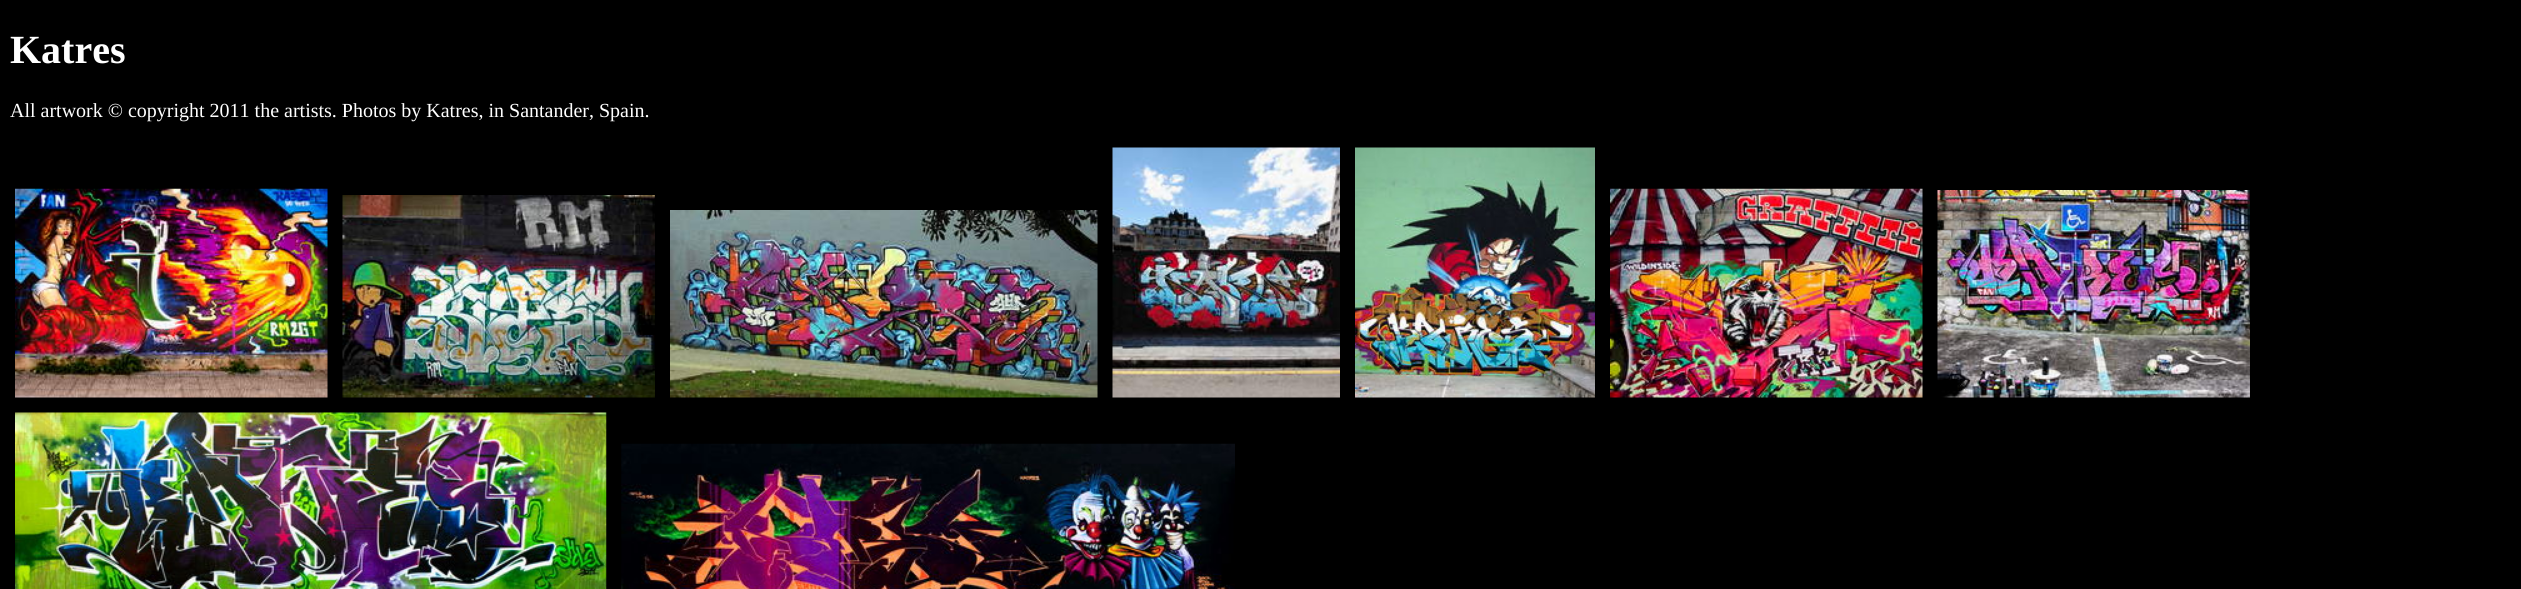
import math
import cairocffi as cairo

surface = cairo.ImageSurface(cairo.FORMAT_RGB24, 2521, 589)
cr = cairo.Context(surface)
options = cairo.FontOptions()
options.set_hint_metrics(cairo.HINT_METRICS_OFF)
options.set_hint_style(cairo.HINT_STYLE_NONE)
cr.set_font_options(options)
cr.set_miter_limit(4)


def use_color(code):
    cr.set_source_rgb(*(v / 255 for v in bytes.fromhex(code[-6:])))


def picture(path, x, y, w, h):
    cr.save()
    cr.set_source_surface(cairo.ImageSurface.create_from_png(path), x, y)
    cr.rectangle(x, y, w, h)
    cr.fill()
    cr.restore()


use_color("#000000")
cr.paint()
cr.select_font_face("Liberation Serif", cairo.FONT_SLANT_NORMAL, cairo.FONT_WEIGHT_BOLD)
cr.set_font_size(40)
use_color("#ffffff")
cr.move_to(10, 63)
cr.show_text("Katres")
cr.select_font_face("Liberation Serif")
cr.set_font_size(20)
cr.move_to(10, 117)
cr.show_text("All artwork © copyright 2011 the artists. Photos by Katres, in Santander, Spain.")
picture("img1.png", 15, 188, 313, 210)
picture("img2.png", 342, 195, 313, 203)
picture("img3.png", 670, 210, 428, 188)
picture("img4.png", 1112, 147, 228, 251)
picture("img5.png", 1355, 147, 240, 251)
picture("img6.png", 1610, 188, 313, 210)
picture("img7.png", 1937, 190, 313, 208)
picture("img8.png", 15, 412, 592, 177)
picture("img9.png", 621, 443, 614, 146)
surface.write_to_png("result.png")
